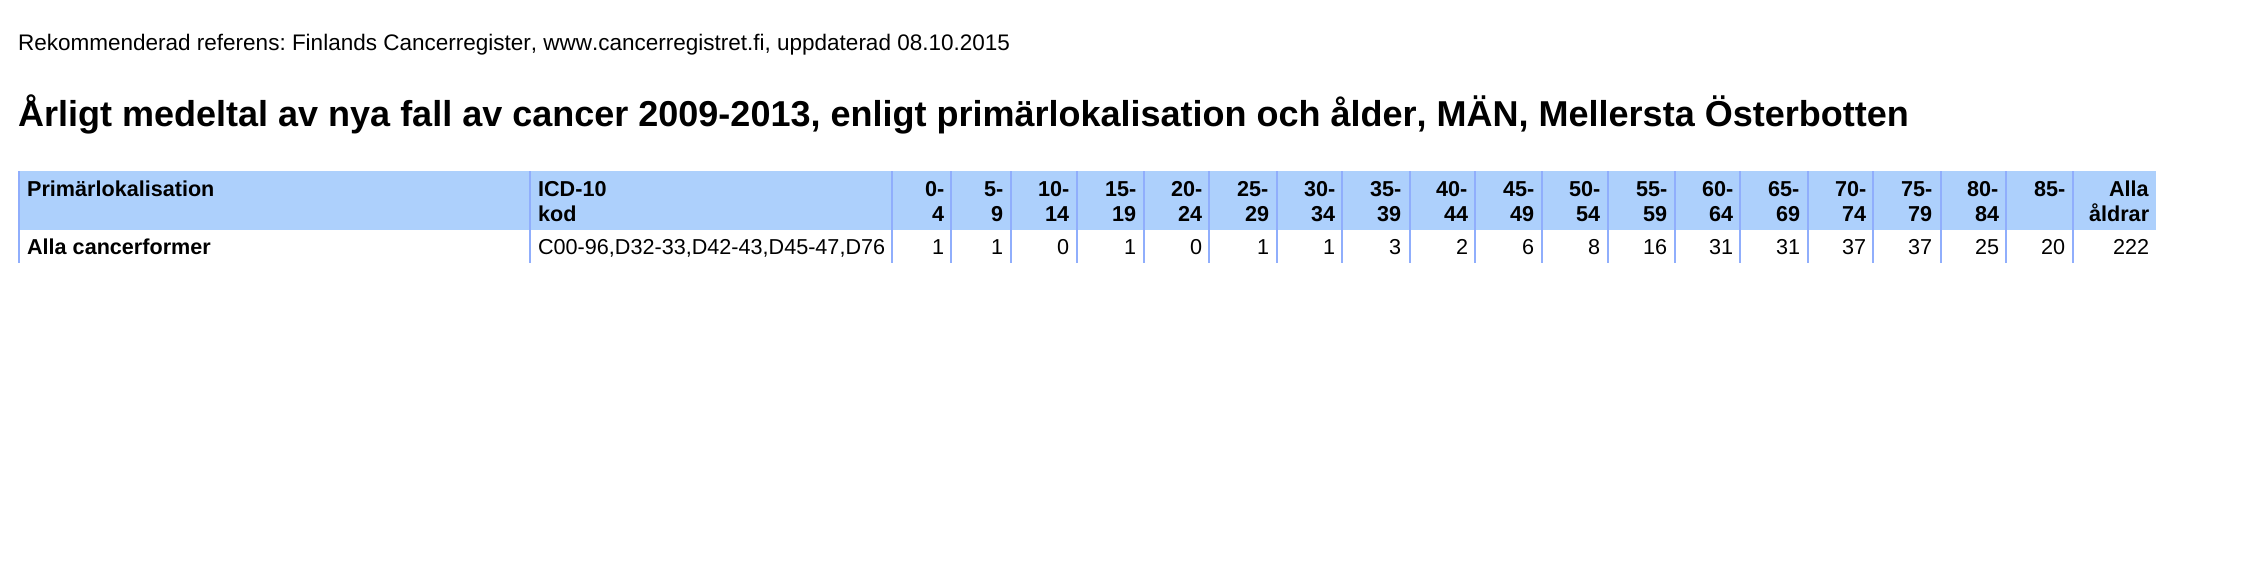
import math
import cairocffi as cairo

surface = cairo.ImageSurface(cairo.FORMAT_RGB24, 2255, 581)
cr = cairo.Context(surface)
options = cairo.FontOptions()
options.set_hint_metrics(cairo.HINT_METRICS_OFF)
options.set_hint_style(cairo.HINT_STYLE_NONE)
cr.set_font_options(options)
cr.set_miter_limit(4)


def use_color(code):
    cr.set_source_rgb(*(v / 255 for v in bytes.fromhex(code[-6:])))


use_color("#ffffff")
cr.paint()
cr.select_font_face("Liberation Sans")
cr.set_font_size(22.5)
use_color("#000000")
cr.move_to(18, 50)
cr.show_text("Rekommenderad referens: Finlands Cancerregister, www.cancerregistret.fi, uppdaterad 08.10.2015")
cr.select_font_face("Liberation Sans", cairo.FONT_SLANT_NORMAL, cairo.FONT_WEIGHT_BOLD)
cr.set_font_size(36)
cr.move_to(18, 126)
cr.show_text("Årligt medeltal av nya fall av cancer 2009-2013, enligt primärlokalisation och ålder, MÄN, Mellersta Österbotten")
use_color("#add0fc")
cr.rectangle(20, 171, 2136, 59)
cr.fill()
use_color("#90aefc")
cr.rectangle(18, 171, 2, 92)
cr.fill()
cr.set_font_size(21.6)
use_color("#000000")
cr.move_to(27, 196)
cr.show_text("Primärlokalisation")
use_color("#90aefc")
cr.rectangle(529, 171, 2, 92)
cr.fill()
use_color("#000000")
cr.move_to(538, 196)
cr.show_text("ICD-10")
cr.move_to(538, 221)
cr.show_text("kod")
use_color("#90aefc")
cr.rectangle(891, 171, 2, 92)
cr.fill()
use_color("#000000")
cr.move_to(925, 196)
cr.show_text("0-")
cr.move_to(932, 221)
cr.show_text("4")
use_color("#90aefc")
cr.rectangle(950, 171, 2, 92)
cr.fill()
use_color("#000000")
cr.move_to(984, 196)
cr.show_text("5-")
cr.move_to(991, 221)
cr.show_text("9")
use_color("#90aefc")
cr.rectangle(1010, 171, 2, 92)
cr.fill()
use_color("#000000")
cr.move_to(1038, 196)
cr.show_text("10-")
cr.move_to(1045, 221)
cr.show_text("14")
use_color("#90aefc")
cr.rectangle(1076, 171, 2, 92)
cr.fill()
use_color("#000000")
cr.move_to(1105, 196)
cr.show_text("15-")
cr.move_to(1112, 221)
cr.show_text("19")
use_color("#90aefc")
cr.rectangle(1143, 171, 2, 92)
cr.fill()
use_color("#000000")
cr.move_to(1171, 196)
cr.show_text("20-")
cr.move_to(1178, 221)
cr.show_text("24")
use_color("#90aefc")
cr.rectangle(1208, 171, 2, 92)
cr.fill()
use_color("#000000")
cr.move_to(1237, 196)
cr.show_text("25-")
cr.move_to(1245, 221)
cr.show_text("29")
use_color("#90aefc")
cr.rectangle(1276, 171, 2, 92)
cr.fill()
use_color("#000000")
cr.move_to(1304, 196)
cr.show_text("30-")
cr.move_to(1311, 221)
cr.show_text("34")
use_color("#90aefc")
cr.rectangle(1341, 171, 2, 92)
cr.fill()
use_color("#000000")
cr.move_to(1370, 196)
cr.show_text("35-")
cr.move_to(1377, 221)
cr.show_text("39")
use_color("#90aefc")
cr.rectangle(1409, 171, 2, 92)
cr.fill()
use_color("#000000")
cr.move_to(1436, 196)
cr.show_text("40-")
cr.move_to(1444, 221)
cr.show_text("44")
use_color("#90aefc")
cr.rectangle(1474, 171, 2, 92)
cr.fill()
use_color("#000000")
cr.move_to(1503, 196)
cr.show_text("45-")
cr.move_to(1510, 221)
cr.show_text("49")
use_color("#90aefc")
cr.rectangle(1541, 171, 2, 92)
cr.fill()
use_color("#000000")
cr.move_to(1569, 196)
cr.show_text("50-")
cr.move_to(1576, 221)
cr.show_text("54")
use_color("#90aefc")
cr.rectangle(1607, 171, 2, 92)
cr.fill()
use_color("#000000")
cr.move_to(1636, 196)
cr.show_text("55-")
cr.move_to(1643, 221)
cr.show_text("59")
use_color("#90aefc")
cr.rectangle(1674, 171, 2, 92)
cr.fill()
use_color("#000000")
cr.move_to(1702, 196)
cr.show_text("60-")
cr.move_to(1709, 221)
cr.show_text("64")
use_color("#90aefc")
cr.rectangle(1739, 171, 2, 92)
cr.fill()
use_color("#000000")
cr.move_to(1768, 196)
cr.show_text("65-")
cr.move_to(1776, 221)
cr.show_text("69")
use_color("#90aefc")
cr.rectangle(1807, 171, 2, 92)
cr.fill()
use_color("#000000")
cr.move_to(1835, 196)
cr.show_text("70-")
cr.move_to(1842, 221)
cr.show_text("74")
use_color("#90aefc")
cr.rectangle(1872, 171, 2, 92)
cr.fill()
use_color("#000000")
cr.move_to(1901, 196)
cr.show_text("75-")
cr.move_to(1908, 221)
cr.show_text("79")
use_color("#90aefc")
cr.rectangle(1940, 171, 2, 92)
cr.fill()
use_color("#000000")
cr.move_to(1967, 196)
cr.show_text("80-")
cr.move_to(1975, 221)
cr.show_text("84")
use_color("#90aefc")
cr.rectangle(2005, 171, 2, 92)
cr.fill()
use_color("#000000")
cr.move_to(2034, 196)
cr.show_text("85-")
use_color("#90aefc")
cr.rectangle(2072, 171, 2, 92)
cr.fill()
use_color("#000000")
cr.move_to(2109, 196)
cr.show_text("Alla")
cr.move_to(2089, 221)
cr.show_text("åldrar")
cr.move_to(27, 254)
cr.show_text("Alla cancerformer")
cr.select_font_face("Liberation Sans")
cr.move_to(538, 254)
cr.show_text("C00-96,D32-33,D42-43,D45-47,D76")
cr.move_to(932, 254)
cr.show_text("1")
cr.move_to(991, 254)
cr.show_text("1")
cr.move_to(1057, 254)
cr.show_text("0")
cr.move_to(1124, 254)
cr.show_text("1")
cr.move_to(1190, 254)
cr.show_text("0")
cr.move_to(1257, 254)
cr.show_text("1")
cr.move_to(1323, 254)
cr.show_text("1")
cr.move_to(1389, 254)
cr.show_text("3")
cr.move_to(1456, 254)
cr.show_text("2")
cr.move_to(1522, 254)
cr.show_text("6")
cr.move_to(1588, 254)
cr.show_text("8")
cr.move_to(1643, 254)
cr.show_text("16")
cr.move_to(1709, 254)
cr.show_text("31")
cr.move_to(1776, 254)
cr.show_text("31")
cr.move_to(1842, 254)
cr.show_text("37")
cr.move_to(1908, 254)
cr.show_text("37")
cr.move_to(1975, 254)
cr.show_text("25")
cr.move_to(2041, 254)
cr.show_text("20")
cr.move_to(2113, 254)
cr.show_text("222")
surface.write_to_png("result.png")
